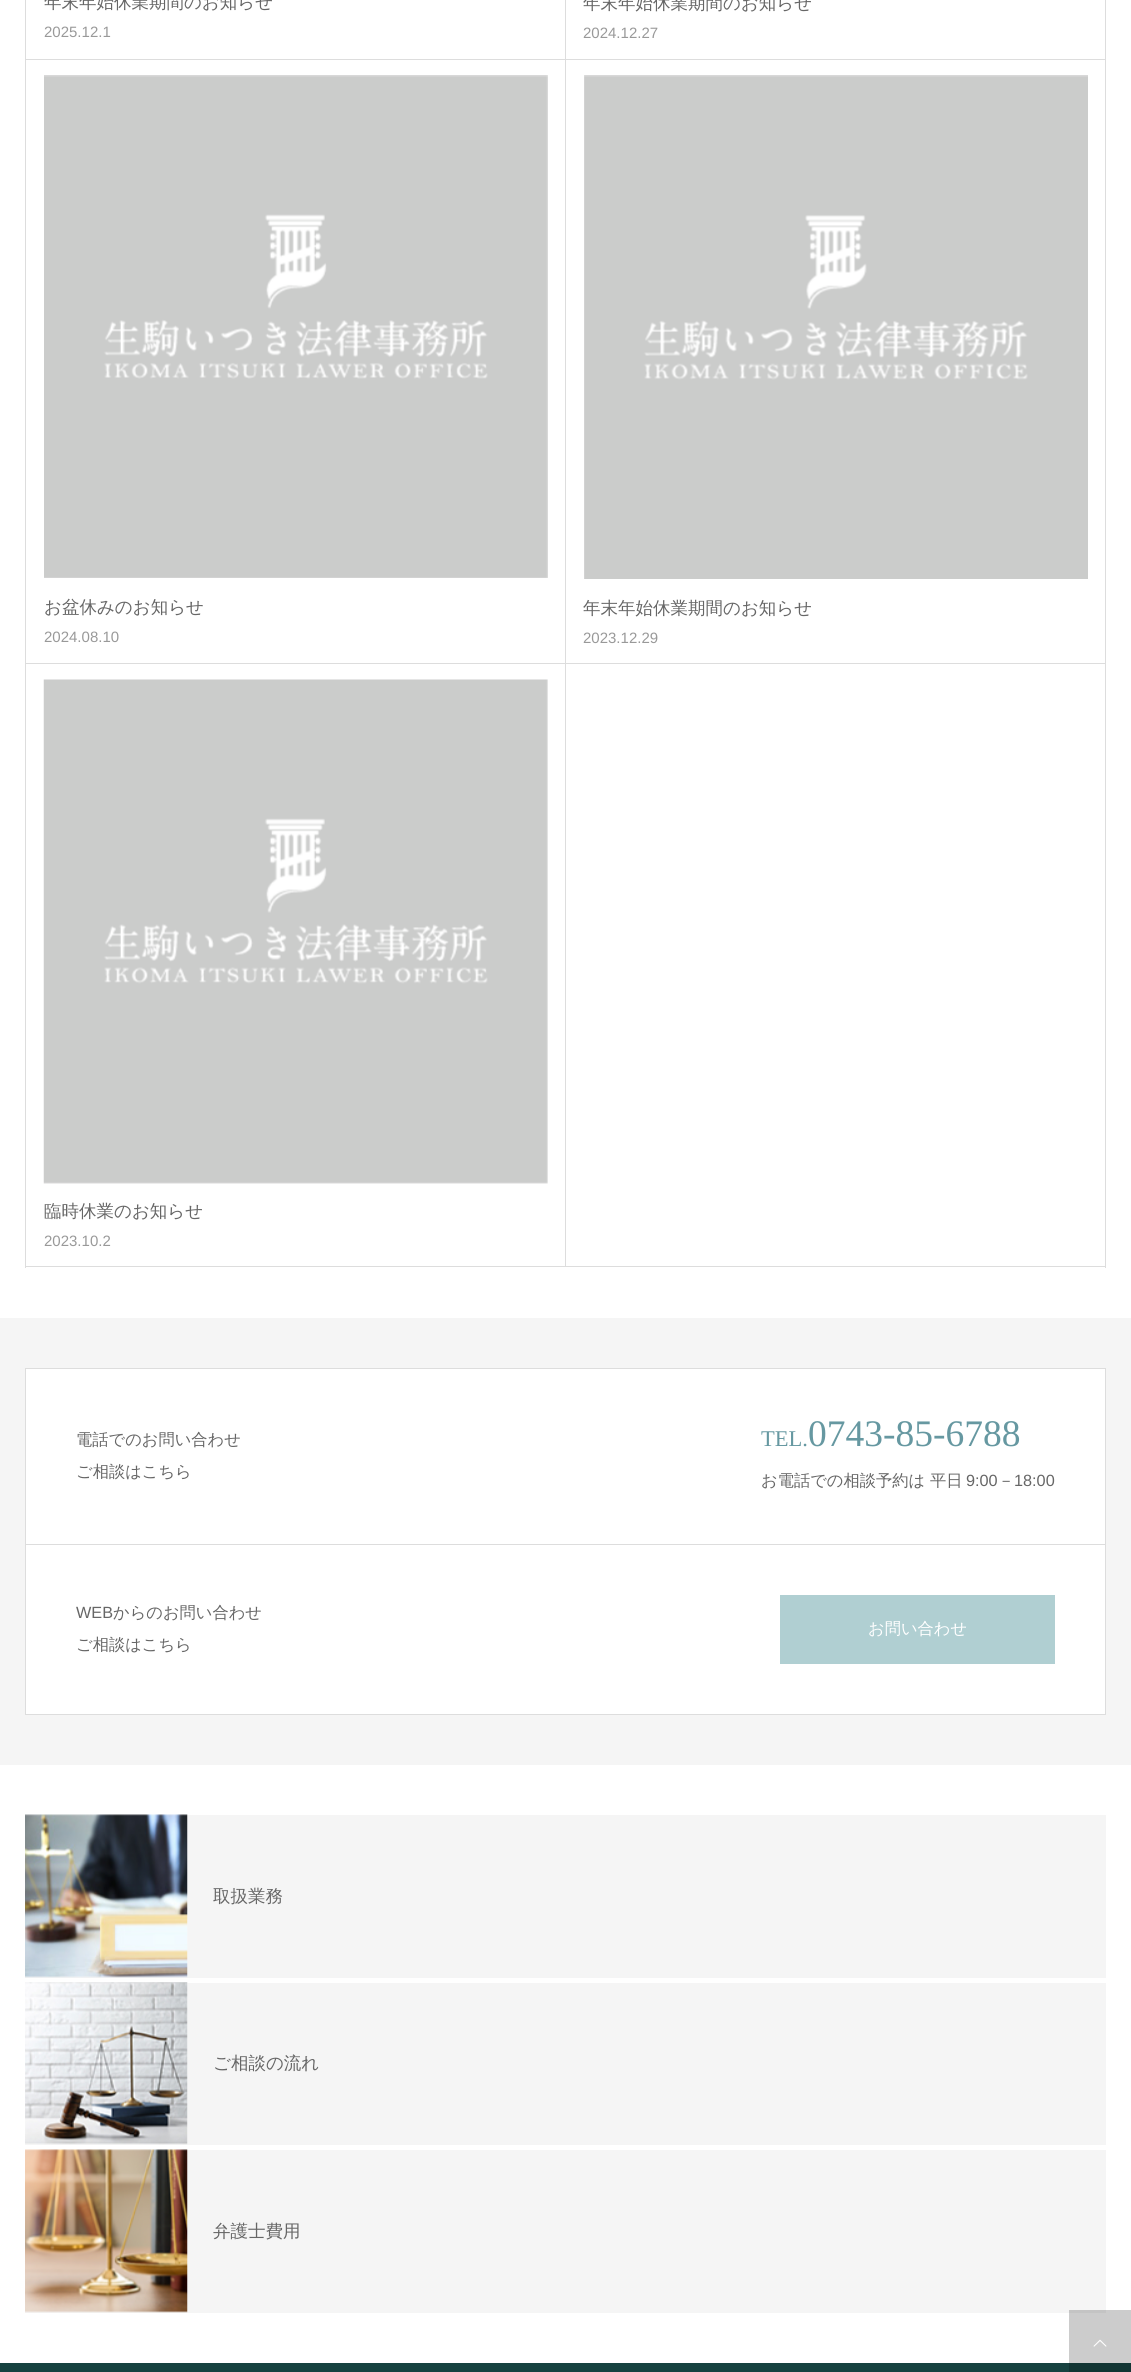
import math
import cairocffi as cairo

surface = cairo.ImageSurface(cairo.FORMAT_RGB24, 1131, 2372)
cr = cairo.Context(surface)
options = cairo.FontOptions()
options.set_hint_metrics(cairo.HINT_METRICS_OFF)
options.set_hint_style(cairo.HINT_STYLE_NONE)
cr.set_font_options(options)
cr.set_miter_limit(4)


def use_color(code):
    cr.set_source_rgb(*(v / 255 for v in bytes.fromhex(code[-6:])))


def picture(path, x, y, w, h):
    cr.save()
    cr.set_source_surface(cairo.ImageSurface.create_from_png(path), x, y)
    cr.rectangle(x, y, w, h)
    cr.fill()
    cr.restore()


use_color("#ffffff")
cr.paint()
use_color("#dddddd")
cr.rectangle(1105, 0, 1, 1268)
cr.fill()
cr.rectangle(25, 1266, 1081, 1)
cr.fill()
cr.rectangle(25, 0, 1, 1268)
cr.fill()
cr.rectangle(565, 0, 1, 60)
cr.fill()
cr.rectangle(26, 59, 1079, 1)
cr.fill()
cr.select_font_face("WenQuanYi Zen Hei Medium")
cr.set_font_size(17.5)
use_color("#666666")
cr.move_to(44, 8)
cr.show_text("年末年始休業期間のお知らせ")
cr.select_font_face("Liberation Sans")
cr.set_font_size(15)
use_color("#999999")
cr.move_to(44, 37)
cr.show_text("2025.12.1")
cr.select_font_face("WenQuanYi Zen Hei Medium")
cr.set_font_size(17.5)
use_color("#666666")
cr.move_to(583, 9)
cr.show_text("年末年始休業期間のお知らせ")
cr.select_font_face("Liberation Sans")
cr.set_font_size(15)
use_color("#999999")
cr.move_to(583, 38)
cr.show_text("2024.12.27")
use_color("#dddddd")
cr.rectangle(565, 59, 1, 605)
cr.fill()
cr.rectangle(26, 663, 1079, 1)
cr.fill()
picture("img1.png", 44, 75, 504, 503)
cr.select_font_face("WenQuanYi Zen Hei Medium")
cr.set_font_size(17.5)
use_color("#666666")
cr.move_to(44, 613)
cr.show_text("お盆休みのお知らせ")
cr.select_font_face("Liberation Sans")
cr.set_font_size(15)
use_color("#999999")
cr.move_to(44, 642)
cr.show_text("2024.08.10")
picture("img2.png", 584, 75, 504, 504)
cr.select_font_face("WenQuanYi Zen Hei Medium")
cr.set_font_size(17.5)
use_color("#666666")
cr.move_to(583, 614)
cr.show_text("年末年始休業期間のお知らせ")
cr.select_font_face("Liberation Sans")
cr.set_font_size(15)
use_color("#999999")
cr.move_to(583, 643)
cr.show_text("2023.12.29")
use_color("#dddddd")
cr.rectangle(565, 663, 1, 603)
cr.fill()
picture("img3.png", 43, 679, 505, 505)
cr.select_font_face("WenQuanYi Zen Hei Medium")
cr.set_font_size(17.5)
use_color("#666666")
cr.move_to(44, 1217)
cr.show_text("臨時休業のお知らせ")
cr.select_font_face("Liberation Sans")
cr.set_font_size(15)
use_color("#999999")
cr.move_to(44, 1246)
cr.show_text("2023.10.2")
use_color("#f5f5f5")
cr.rectangle(0, 1318, 1131, 447)
cr.fill()
use_color("#ffffff")
cr.rectangle(25.5, 1368.5, 1080, 176)
cr.fill_preserve()
use_color("#dddddd")
cr.set_line_width(1)
cr.stroke()
cr.select_font_face("WenQuanYi Zen Hei Medium")
cr.set_font_size(16.25)
use_color("#666666")
cr.move_to(76, 1445)
cr.show_text("電話でのお問い合わせ")
cr.move_to(76, 1477)
cr.show_text("ご相談はこちら")
cr.select_font_face("Liberation Serif")
cr.set_font_size(22.5)
use_color("#6698a1")
cr.move_to(761, 1446)
cr.show_text("TEL.")
cr.set_font_size(37.5)
cr.move_to(808, 1446)
cr.show_text("0743-85-6788")
cr.select_font_face("WenQuanYi Zen Hei Medium")
cr.set_font_size(16.25)
use_color("#666666")
cr.move_to(761, 1486)
cr.show_text("お電話での相談予約は 平日")
cr.select_font_face("Liberation Sans")
cr.move_to(966, 1486)
cr.show_text("9:00")
cr.select_font_face("WenQuanYi Zen Hei Medium")
cr.move_to(998, 1486)
cr.show_text("－")
cr.select_font_face("Liberation Sans")
cr.move_to(1014, 1486)
cr.show_text("18:00")
use_color("#ffffff")
cr.rectangle(26, 1545, 1079, 169)
cr.fill()
use_color("#dddddd")
cr.rectangle(1105, 1545, 1, 170)
cr.fill()
cr.rectangle(25, 1714, 1081, 1)
cr.fill()
cr.rectangle(25, 1545, 1, 170)
cr.fill()
use_color("#666666")
cr.move_to(76, 1618)
cr.show_text("WEB")
cr.select_font_face("WenQuanYi Zen Hei Medium")
cr.move_to(113, 1618)
cr.show_text("からのお問い合わせ")
cr.move_to(76, 1650)
cr.show_text("ご相談はこちら")
use_color("#b0cfd2")
cr.rectangle(780, 1595, 275, 69)
cr.fill()
use_color("#ffffff")
cr.move_to(868, 1634)
cr.show_text("お問い合わせ")
use_color("#f5f5f5")
cr.rectangle(25, 1815, 1081, 163)
cr.fill()
picture("img4.png", 25, 1814, 163, 164)
cr.set_font_size(17.5)
use_color("#666666")
cr.move_to(213, 1902)
cr.show_text("取扱業務")
use_color("#f5f5f5")
cr.rectangle(25, 1983, 1081, 162)
cr.fill()
picture("img5.png", 25, 1982, 163, 163)
use_color("#666666")
cr.move_to(213, 2069)
cr.show_text("ご相談の流れ")
use_color("#f5f5f5")
cr.rectangle(25, 2150, 1081, 163)
cr.fill()
picture("img6.png", 25, 2149, 163, 164)
use_color("#666666")
cr.move_to(213, 2237)
cr.show_text("弁護士費用")
use_color("#174240")
cr.rectangle(0, 2363, 1131, 9)
cr.fill()
cr.set_source_rgba(0, 0, 0, 0.2)
cr.rectangle(1069, 2310, 62, 62)
cr.fill()
picture("img7.png", 1093, 2339, 14, 8)
surface.write_to_png("result.png")
